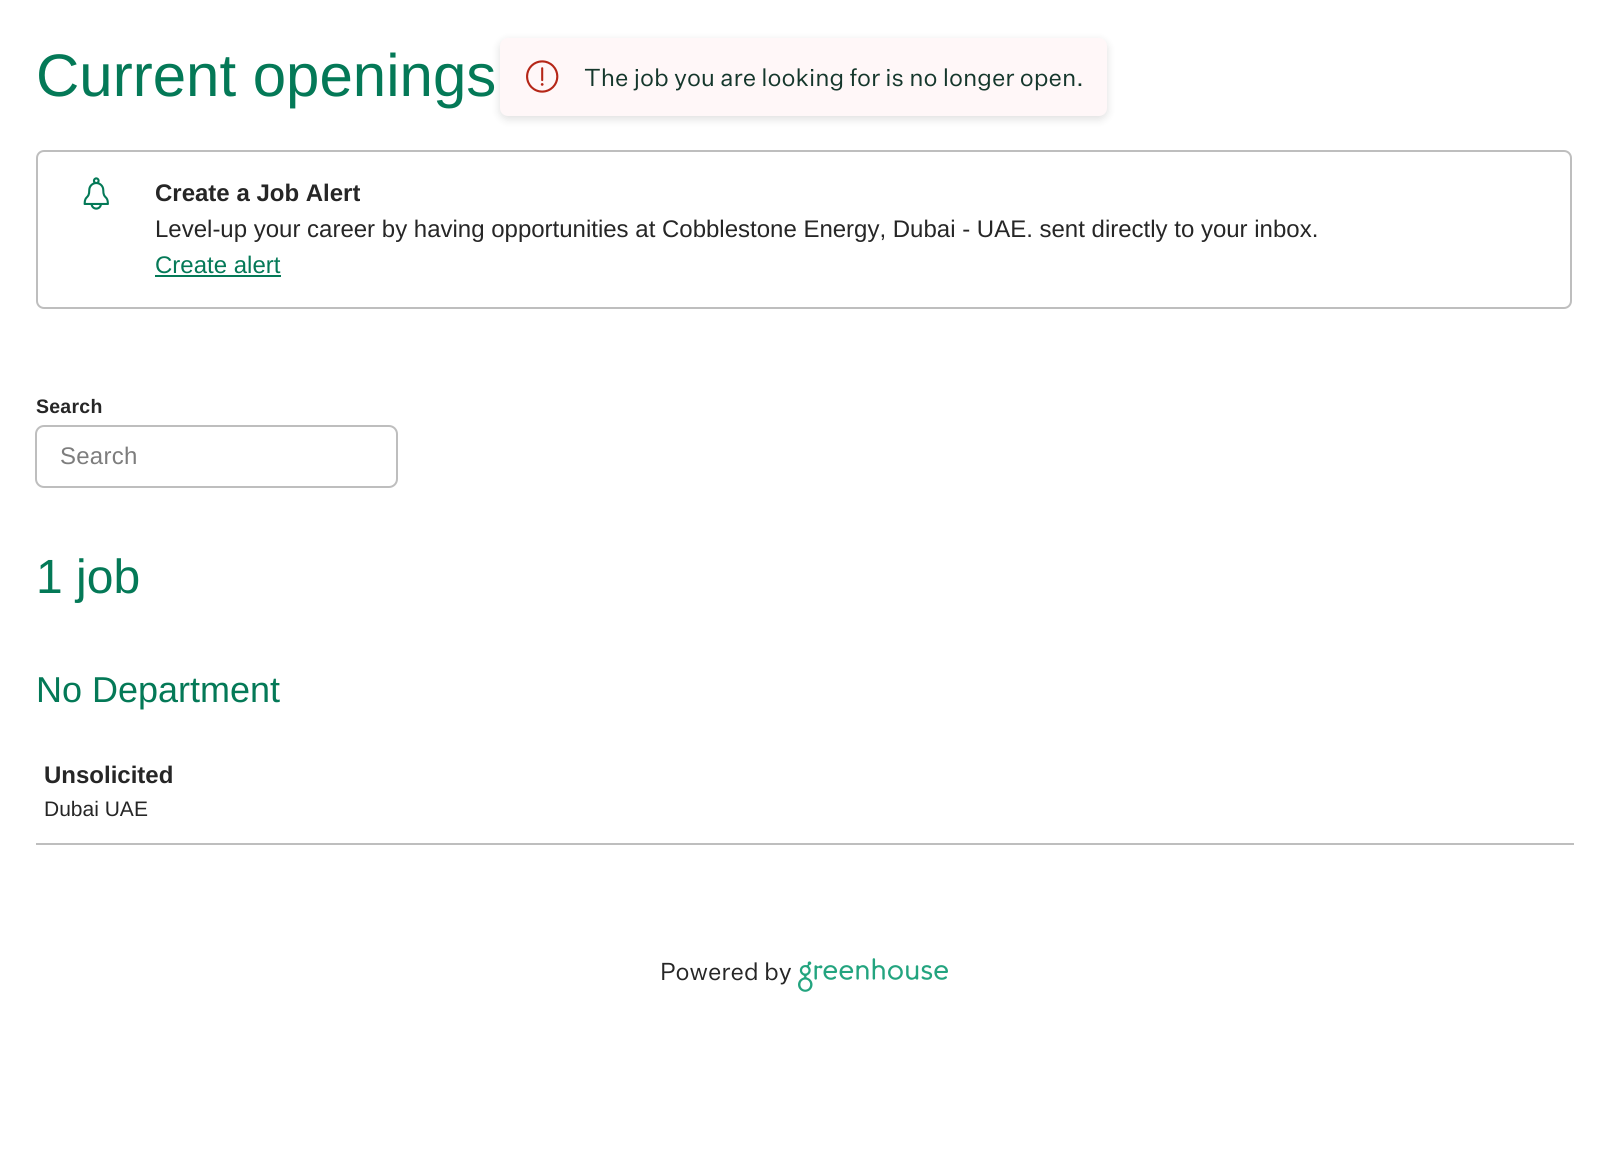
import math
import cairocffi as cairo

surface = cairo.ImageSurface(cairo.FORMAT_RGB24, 1607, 1165)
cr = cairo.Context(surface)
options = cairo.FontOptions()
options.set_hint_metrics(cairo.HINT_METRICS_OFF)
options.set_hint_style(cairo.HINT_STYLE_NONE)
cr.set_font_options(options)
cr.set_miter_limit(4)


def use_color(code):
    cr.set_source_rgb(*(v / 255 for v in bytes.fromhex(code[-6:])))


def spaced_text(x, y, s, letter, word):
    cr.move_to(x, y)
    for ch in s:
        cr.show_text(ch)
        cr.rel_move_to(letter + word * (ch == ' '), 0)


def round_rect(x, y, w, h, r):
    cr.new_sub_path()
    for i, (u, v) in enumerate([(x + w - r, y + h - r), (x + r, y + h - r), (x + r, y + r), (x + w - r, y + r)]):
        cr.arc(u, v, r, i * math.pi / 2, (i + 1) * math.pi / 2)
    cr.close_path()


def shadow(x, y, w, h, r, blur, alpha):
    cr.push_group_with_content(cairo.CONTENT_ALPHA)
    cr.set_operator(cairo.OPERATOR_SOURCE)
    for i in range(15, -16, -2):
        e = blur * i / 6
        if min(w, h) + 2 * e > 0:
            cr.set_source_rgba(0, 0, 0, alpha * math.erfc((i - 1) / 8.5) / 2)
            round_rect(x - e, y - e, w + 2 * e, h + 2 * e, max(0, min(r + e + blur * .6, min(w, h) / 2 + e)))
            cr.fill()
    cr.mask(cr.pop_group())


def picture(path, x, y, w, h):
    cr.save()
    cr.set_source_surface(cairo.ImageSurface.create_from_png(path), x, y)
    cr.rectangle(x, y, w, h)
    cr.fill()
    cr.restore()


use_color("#ffffff")
cr.paint()
cr.select_font_face("Liberation Sans")
cr.set_font_size(60)
use_color("#047957")
cr.move_to(36, 96)
cr.show_text("Current openings")
round_rect(37, 151, 1534, 157, 7)
use_color("#bebebe")
cr.stroke()
picture("img1.png", 83, 177, 26, 33)
cr.select_font_face("Liberation Sans", cairo.FONT_SLANT_NORMAL, cairo.FONT_WEIGHT_BOLD)
cr.set_font_size(24)
use_color("#262626")
cr.move_to(155, 201)
cr.show_text("Create a Job Alert")
cr.select_font_face("Liberation Sans")
cr.move_to(155, 237)
cr.show_text("Level-up your career by having opportunities at Cobblestone Energy, Dubai - UAE. sent directly to your inbox.")
use_color("#047957")
cr.move_to(155, 273)
cr.show_text("Create alert")
cr.rectangle(155, 275, 126, 2)
cr.fill()
cr.select_font_face("Liberation Sans", cairo.FONT_SLANT_NORMAL, cairo.FONT_WEIGHT_BOLD)
cr.set_font_size(19.5)
use_color("#262626")
spaced_text(36, 413, "Search", 0.25, 0)
round_rect(36, 426, 361, 61, 8)
use_color("#bebebe")
cr.stroke()
cr.select_font_face("Liberation Sans")
cr.set_font_size(24)
use_color("#7d7d7d")
spaced_text(60, 464, "Search", 0.25, 0)
cr.set_font_size(48)
use_color("#047957")
cr.move_to(36, 593)
cr.show_text("1 job")
cr.set_font_size(36)
cr.move_to(36, 702)
cr.show_text("No Department")
use_color("#bebebe")
cr.rectangle(36, 843, 1538, 2)
cr.fill()
cr.select_font_face("Liberation Sans", cairo.FONT_SLANT_NORMAL, cairo.FONT_WEIGHT_BOLD)
cr.set_font_size(24)
use_color("#262626")
cr.move_to(44, 783)
cr.show_text("Unsolicited")
cr.select_font_face("Liberation Sans")
cr.set_font_size(21)
cr.move_to(44, 816)
cr.show_text("Dubai UAE")
use_color("#000000")
shadow(500, 41, 607, 78, 8, 4.5, 0.13)
use_color("#fff7f8")
round_rect(500, 38, 607, 78, 8)
cr.fill()
picture("img2.png", 526, 60, 33, 33)
cr.select_font_face("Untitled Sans")
cr.set_font_size(24)
use_color("#15372c")
cr.move_to(584, 86)
cr.show_text("The job you are looking for is no longer open.")
use_color("#262626")
cr.move_to(660, 980)
cr.show_text("Powered by")
picture("img3.png", 798, 958, 150, 34)
surface.write_to_png("result.png")
